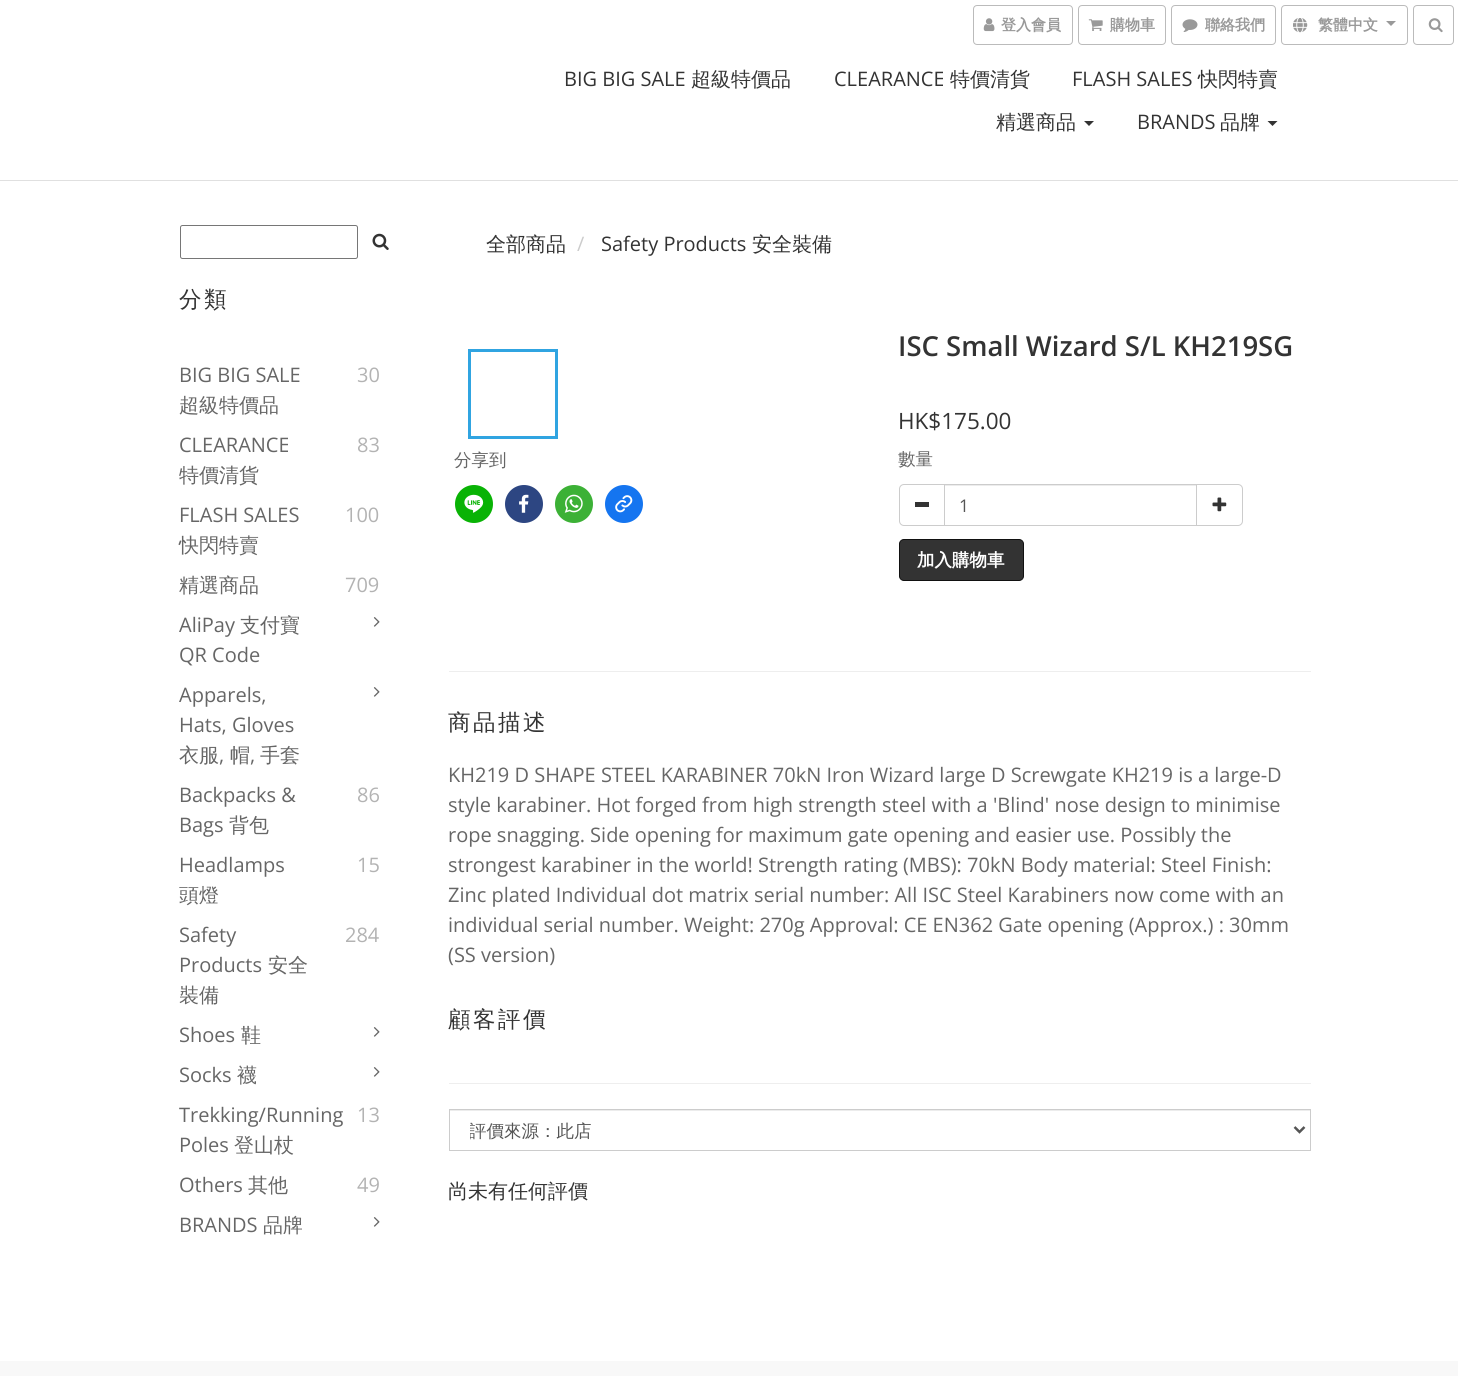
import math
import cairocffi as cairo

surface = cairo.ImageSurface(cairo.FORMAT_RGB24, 1458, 1376)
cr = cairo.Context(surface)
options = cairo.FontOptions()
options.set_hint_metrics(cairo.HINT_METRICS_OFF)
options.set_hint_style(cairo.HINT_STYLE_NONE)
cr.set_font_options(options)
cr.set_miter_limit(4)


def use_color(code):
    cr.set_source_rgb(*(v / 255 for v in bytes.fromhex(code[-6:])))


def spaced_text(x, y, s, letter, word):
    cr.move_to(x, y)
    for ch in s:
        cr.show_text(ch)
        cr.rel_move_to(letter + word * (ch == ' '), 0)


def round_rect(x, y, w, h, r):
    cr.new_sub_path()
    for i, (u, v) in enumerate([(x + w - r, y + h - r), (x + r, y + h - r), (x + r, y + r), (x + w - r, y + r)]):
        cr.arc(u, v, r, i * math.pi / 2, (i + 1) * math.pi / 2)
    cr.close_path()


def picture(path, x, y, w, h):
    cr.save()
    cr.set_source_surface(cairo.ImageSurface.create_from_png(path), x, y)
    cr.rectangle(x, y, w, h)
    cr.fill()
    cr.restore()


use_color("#ffffff")
cr.paint()
round_rect(973.5, 5.5, 99, 39, 3.5)
use_color("#bbbbbb")
cr.set_line_width(1)
cr.stroke()
picture("img1.png", 983, 18, 12, 14)
cr.select_font_face("WenQuanYi Zen Hei", cairo.FONT_SLANT_NORMAL, cairo.FONT_WEIGHT_BOLD)
cr.set_font_size(15)
use_color("#999999")
cr.move_to(1001, 30)
cr.show_text("登入會員")
round_rect(1078.5, 5.5, 87, 39, 3.5)
use_color("#bbbbbb")
cr.stroke()
picture("img2.png", 1088, 19, 15, 12)
use_color("#999999")
cr.move_to(1110, 30)
cr.show_text("購物車")
round_rect(1171.5, 5.5, 104, 39, 3.5)
use_color("#bbbbbb")
cr.stroke()
picture("img3.png", 1182, 19, 16, 13)
use_color("#999999")
cr.move_to(1205, 30)
cr.show_text("聯絡我們")
round_rect(1281.5, 5.5, 126, 39, 3.5)
use_color("#bbbbbb")
cr.stroke()
picture("img4.png", 1293, 18, 15, 15)
use_color("#999999")
cr.move_to(1318, 30)
cr.show_text("繁體中文")
cr.new_path()
cr.move_to(1386, 21)
cr.line_to(1396, 21)
cr.line_to(1391, 26)
cr.close_path()
cr.fill()
round_rect(1413.5, 5.5, 40, 39, 3.5)
use_color("#bbbbbb")
cr.stroke()
picture("img5.png", 1428, 18, 15, 15)
use_color("#e0e0e0")
cr.rectangle(0, 180, 1458, 1)
cr.fill()
cr.select_font_face("Open Sans")
cr.set_font_size(20)
use_color("#333333")
cr.move_to(564, 86)
cr.show_text("BIG BIG SALE")
cr.select_font_face("WenQuanYi Zen Hei Medium")
cr.move_to(691, 86)
cr.show_text("超級特價品")
cr.select_font_face("Open Sans")
cr.move_to(834, 86)
cr.show_text("CLEARANCE")
cr.select_font_face("WenQuanYi Zen Hei Medium")
cr.move_to(950, 86)
cr.show_text("特價清貨")
cr.select_font_face("Open Sans")
cr.move_to(1072, 86)
cr.show_text("FLASH SALES")
cr.select_font_face("WenQuanYi Zen Hei Medium")
cr.move_to(1198, 86)
cr.show_text("快閃特賣")
cr.move_to(996, 129)
cr.show_text("精選商品")
cr.new_path()
cr.move_to(1084, 121)
cr.line_to(1094, 121)
cr.line_to(1089, 126)
cr.close_path()
cr.fill()
cr.select_font_face("Open Sans")
cr.move_to(1137, 129)
cr.show_text("BRANDS")
cr.select_font_face("WenQuanYi Zen Hei Medium")
cr.move_to(1220, 129)
cr.show_text("品牌")
cr.new_path()
cr.move_to(1267.5, 121)
cr.line_to(1277.5, 121)
cr.line_to(1272.5, 126)
cr.close_path()
cr.fill()
round_rect(180.5, 225.5, 177, 33, 2)
use_color("#767676")
cr.stroke()
picture("img6.png", 372, 233, 17, 17)
cr.set_font_size(22.5)
use_color("#333333")
spaced_text(179, 307, "分類", 2.5, 0)
cr.select_font_face("Open Sans")
cr.set_font_size(20)
use_color("#666666")
cr.move_to(179, 382)
cr.show_text("BIG BIG SALE")
cr.select_font_face("WenQuanYi Zen Hei Medium")
cr.move_to(179, 412)
cr.show_text("超級特價品")
cr.select_font_face("Open Sans")
use_color("#b3b3b3")
cr.move_to(357, 382)
cr.show_text("30")
use_color("#666666")
cr.move_to(179, 452)
cr.show_text("CLEARANCE")
cr.select_font_face("WenQuanYi Zen Hei Medium")
cr.move_to(179, 482)
cr.show_text("特價清貨")
cr.select_font_face("Open Sans")
use_color("#b3b3b3")
cr.move_to(357, 452)
cr.show_text("83")
use_color("#666666")
cr.move_to(179, 522)
cr.show_text("FLASH SALES")
cr.select_font_face("WenQuanYi Zen Hei Medium")
cr.move_to(179, 552)
cr.show_text("快閃特賣")
cr.select_font_face("Open Sans")
use_color("#b3b3b3")
cr.move_to(345, 522)
cr.show_text("100")
cr.select_font_face("WenQuanYi Zen Hei Medium")
use_color("#666666")
cr.move_to(179, 592)
cr.show_text("精選商品")
cr.select_font_face("Open Sans")
use_color("#b3b3b3")
cr.move_to(345, 592)
cr.show_text("709")
use_color("#666666")
cr.move_to(179, 632)
cr.show_text("AliPay")
cr.select_font_face("WenQuanYi Zen Hei Medium")
cr.move_to(240, 632)
cr.show_text("支付寶")
cr.select_font_face("Open Sans")
cr.move_to(179, 662)
cr.show_text("QR Code")
picture("img7.png", 373, 617, 7, 10)
cr.move_to(179, 702)
cr.show_text("Apparels,")
cr.move_to(179, 732)
cr.show_text("Hats, Gloves")
cr.select_font_face("WenQuanYi Zen Hei Medium")
cr.move_to(179, 762)
cr.show_text("衣服")
cr.select_font_face("Open Sans")
cr.move_to(219, 762)
cr.show_text(",")
cr.select_font_face("WenQuanYi Zen Hei Medium")
cr.move_to(230, 762)
cr.show_text("帽")
cr.select_font_face("Open Sans")
cr.move_to(250, 762)
cr.show_text(",")
cr.select_font_face("WenQuanYi Zen Hei Medium")
cr.move_to(260, 762)
cr.show_text("手套")
picture("img7.png", 373, 687, 7, 10)
cr.select_font_face("Open Sans")
cr.move_to(179, 802)
cr.show_text("Backpacks &")
cr.move_to(179, 832)
cr.show_text("Bags")
cr.select_font_face("WenQuanYi Zen Hei Medium")
cr.move_to(229, 832)
cr.show_text("背包")
cr.select_font_face("Open Sans")
use_color("#b3b3b3")
cr.move_to(357, 802)
cr.show_text("86")
use_color("#666666")
cr.move_to(179, 872)
cr.show_text("Headlamps")
cr.select_font_face("WenQuanYi Zen Hei Medium")
cr.move_to(179, 902)
cr.show_text("頭燈")
cr.select_font_face("Open Sans")
use_color("#b3b3b3")
cr.move_to(357, 872)
cr.show_text("15")
use_color("#666666")
cr.move_to(179, 942)
cr.show_text("Safety")
cr.move_to(179, 972)
cr.show_text("Products")
cr.select_font_face("WenQuanYi Zen Hei Medium")
cr.move_to(268, 972)
cr.show_text("安全")
cr.move_to(179, 1002)
cr.show_text("裝備")
cr.select_font_face("Open Sans")
use_color("#b3b3b3")
cr.move_to(345, 942)
cr.show_text("284")
use_color("#666666")
cr.move_to(179, 1042)
cr.show_text("Shoes")
cr.select_font_face("WenQuanYi Zen Hei Medium")
cr.move_to(241, 1042)
cr.show_text("鞋")
picture("img7.png", 373, 1027, 7, 10)
cr.select_font_face("Open Sans")
cr.move_to(179, 1082)
cr.show_text("Socks")
cr.select_font_face("WenQuanYi Zen Hei Medium")
cr.move_to(237, 1082)
cr.show_text("襪")
picture("img7.png", 373, 1067, 7, 10)
cr.select_font_face("Open Sans")
cr.move_to(179, 1122)
cr.show_text("Trekking/Running")
cr.move_to(179, 1152)
cr.show_text("Poles")
cr.select_font_face("WenQuanYi Zen Hei Medium")
cr.move_to(234, 1152)
cr.show_text("登山杖")
cr.select_font_face("Open Sans")
use_color("#b3b3b3")
cr.move_to(357, 1122)
cr.show_text("13")
use_color("#666666")
cr.move_to(179, 1192)
cr.show_text("Others")
cr.select_font_face("WenQuanYi Zen Hei Medium")
cr.move_to(248, 1192)
cr.show_text("其他")
cr.select_font_face("Open Sans")
use_color("#b3b3b3")
cr.move_to(357, 1192)
cr.show_text("49")
use_color("#666666")
cr.move_to(179, 1232)
cr.show_text("BRANDS")
cr.select_font_face("WenQuanYi Zen Hei Medium")
cr.move_to(263, 1232)
cr.show_text("品牌")
picture("img7.png", 373, 1217, 7, 10)
use_color("#333333")
cr.move_to(486, 251)
cr.show_text("全部商品")
cr.select_font_face("Open Sans")
use_color("#cccccc")
cr.move_to(577, 251)
cr.show_text("/")
use_color("#333333")
cr.move_to(601, 251)
cr.show_text("Safety Products")
cr.select_font_face("WenQuanYi Zen Hei Medium")
cr.move_to(752, 251)
cr.show_text("安全裝備")
cr.rectangle(469.5, 350.5, 87, 87)
use_color("#30a4e1")
cr.set_line_width(3)
cr.stroke()
cr.set_font_size(17.5)
use_color("#666666")
cr.move_to(454, 466)
cr.show_text("分享到")
use_color("#09b305")
cr.new_path()
cr.arc(474, 504, 19, 0, 2 * math.pi)
cr.fill()
picture("img8.png", 464, 494, 20, 19)
use_color("#2d4682")
cr.arc(524, 504, 19, 0, 2 * math.pi)
cr.fill()
picture("img9.png", 519, 494, 10, 19)
use_color("#3cb136")
cr.arc(574, 504, 19, 0, 2 * math.pi)
cr.fill()
picture("img10.png", 564, 494, 19, 19)
use_color("#1575f0")
cr.arc(624, 504, 19, 0, 2 * math.pi)
cr.fill()
picture("img11.png", 615, 495, 18, 18)
cr.select_font_face("Open Sans SemiBold")
cr.set_font_size(27.5)
use_color("#333333")
cr.move_to(898, 356)
cr.show_text("ISC Small Wizard S/L KH219SG")
cr.select_font_face("Open Sans")
cr.set_font_size(22.5)
cr.move_to(898, 429)
cr.show_text("HK$175.00")
cr.select_font_face("WenQuanYi Zen Hei Medium")
cr.set_font_size(17.5)
use_color("#666666")
cr.move_to(898, 465)
cr.show_text("數量")
cr.new_path()
cr.move_to(904, 484.5)
cr.line_to(944.5, 484.5)
cr.line_to(944.5, 525.5)
cr.line_to(904, 525.5)
cr.curve_to(901.5, 525.5, 899.5, 523.5, 899.5, 521)
cr.line_to(899.5, 489)
cr.curve_to(899.5, 486.5, 901.5, 484.5, 904, 484.5)
cr.close_path()
use_color("#cccccc")
cr.set_line_width(1)
cr.stroke()
use_color("#333333")
cr.rectangle(915, 502, 14, 5)
cr.fill()
use_color("#ececec")
cr.rectangle(945, 485, 251, 1)
cr.fill()
cr.rectangle(944.5, 484.5, 253, 41)
use_color("#cccccc")
cr.stroke()
cr.select_font_face("Open Sans")
use_color("#555555")
cr.move_to(959, 512)
cr.show_text("1")
use_color("#ffffff")
cr.new_path()
cr.move_to(1196.5, 484.5)
cr.line_to(1238, 484.5)
cr.curve_to(1240.5, 484.5, 1242.5, 486.5, 1242.5, 489)
cr.line_to(1242.5, 521)
cr.curve_to(1242.5, 523.5, 1240.5, 525.5, 1238, 525.5)
cr.line_to(1196.5, 525.5)
cr.close_path()
cr.fill_preserve()
use_color("#cccccc")
cr.stroke()
picture("img12.png", 1212, 497, 15, 15)
use_color("#333333")
round_rect(899.5, 539.5, 124, 41, 4.5)
cr.fill_preserve()
use_color("#111111")
cr.stroke()
cr.select_font_face("WenQuanYi Zen Hei", cairo.FONT_SLANT_NORMAL, cairo.FONT_WEIGHT_BOLD)
use_color("#ffffff")
cr.move_to(917, 566)
cr.show_text("加入購物車")
use_color("#eeeeee")
cr.rectangle(449, 671, 862, 1)
cr.fill()
cr.select_font_face("WenQuanYi Zen Hei Medium")
cr.set_font_size(22.5)
use_color("#333333")
spaced_text(448, 730, "商品描述", 2.5, 0)
cr.select_font_face("Open Sans")
cr.set_font_size(20)
use_color("#666666")
cr.move_to(448, 782)
cr.show_text("KH219 D SHAPE STEEL KARABINER 70kN Iron Wizard large D Screwgate KH219 is a large-D")
cr.move_to(448, 812)
cr.show_text("style karabiner. Hot forged from high strength steel with a 'Blind' nose design to minimise")
cr.move_to(448, 842)
cr.show_text("rope snagging. Side opening for maximum gate opening and easier use. Possibly the")
cr.move_to(448, 872)
cr.show_text("strongest karabiner in the world! Strength rating (MBS): 70kN Body material: Steel Finish:")
cr.move_to(448, 902)
cr.show_text("Zinc plated Individual dot matrix serial number: All ISC Steel Karabiners now come with an")
cr.move_to(448, 932)
cr.show_text("individual serial number. Weight: 270g Approval: CE EN362 Gate opening (Approx.) : 30mm")
cr.move_to(448, 962)
cr.show_text("(SS version)")
cr.select_font_face("WenQuanYi Zen Hei Medium")
cr.set_font_size(22.5)
use_color("#333333")
spaced_text(448, 1027, "顧客評價", 2.5, 0)
use_color("#eeeeee")
cr.rectangle(449, 1083, 862, 1)
cr.fill()
use_color("#ececec")
cr.rectangle(450, 1110, 860, 1)
cr.fill()
cr.rectangle(449.5, 1109.5, 861, 41)
use_color("#cccccc")
cr.stroke()
cr.new_path()
cr.move_to(1294.5, 1127)
cr.line_to(1299.5, 1132)
cr.line_to(1304.5, 1127)
use_color("#555555")
cr.set_line_width(2.5)
cr.stroke()
cr.save()
cr.rectangle(470, 1118, 805, 26)
cr.clip()
cr.set_font_size(17.5)
cr.move_to(469, 1137)
cr.show_text("評價來源：此店")
cr.restore()
cr.set_font_size(20)
use_color("#333333")
cr.move_to(448, 1198)
cr.show_text("尚未有任何評價")
use_color("#f8f8f8")
cr.rectangle(0, 1361, 1458, 15)
cr.fill()
surface.write_to_png("result.png")
